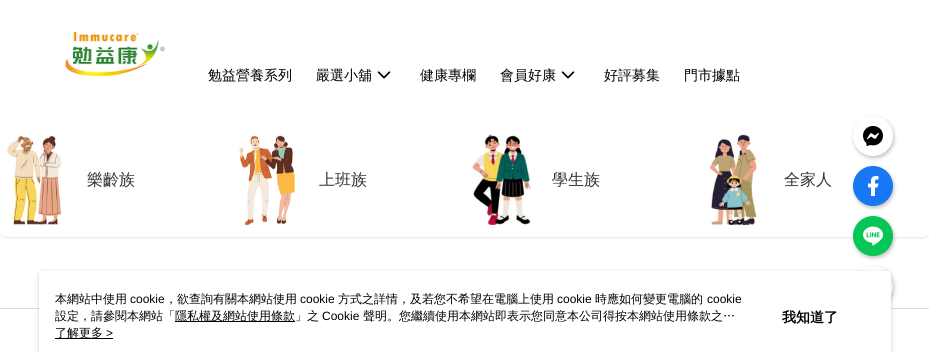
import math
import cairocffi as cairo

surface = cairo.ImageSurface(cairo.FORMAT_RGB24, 929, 352)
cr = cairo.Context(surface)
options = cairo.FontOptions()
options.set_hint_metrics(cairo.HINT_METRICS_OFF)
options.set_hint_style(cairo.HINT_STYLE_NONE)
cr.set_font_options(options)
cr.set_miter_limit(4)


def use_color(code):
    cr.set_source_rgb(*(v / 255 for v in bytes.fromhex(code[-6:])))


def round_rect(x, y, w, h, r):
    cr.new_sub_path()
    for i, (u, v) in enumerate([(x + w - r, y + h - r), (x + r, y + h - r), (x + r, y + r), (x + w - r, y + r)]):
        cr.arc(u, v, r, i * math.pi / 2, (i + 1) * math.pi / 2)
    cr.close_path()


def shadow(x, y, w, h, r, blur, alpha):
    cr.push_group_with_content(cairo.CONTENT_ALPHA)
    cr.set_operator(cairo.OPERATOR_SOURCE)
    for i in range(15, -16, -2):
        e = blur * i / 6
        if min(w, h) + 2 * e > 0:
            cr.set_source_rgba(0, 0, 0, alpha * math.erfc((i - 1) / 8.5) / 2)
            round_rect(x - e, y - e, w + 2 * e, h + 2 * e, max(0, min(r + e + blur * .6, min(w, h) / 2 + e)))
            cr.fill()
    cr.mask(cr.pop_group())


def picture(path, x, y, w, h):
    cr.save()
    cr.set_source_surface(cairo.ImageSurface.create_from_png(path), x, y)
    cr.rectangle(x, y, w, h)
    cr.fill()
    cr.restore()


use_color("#ffffff")
cr.paint()
picture("img1.png", 65, 31, 101, 46)
cr.select_font_face("WenQuanYi Zen Hei Medium")
cr.set_font_size(14)
use_color("#000000")
cr.move_to(208, 80)
cr.show_text("勉益營養系列")
cr.move_to(316, 80)
cr.show_text("嚴選小舖")
picture("img2.png", 377, 71, 14, 8)
cr.move_to(420, 80)
cr.show_text("健康專欄")
cr.move_to(500, 80)
cr.show_text("會員好康")
picture("img2.png", 561, 71, 14, 8)
cr.move_to(604, 80)
cr.show_text("好評募集")
cr.move_to(684, 80)
cr.show_text("門市據點")
use_color("#000000")
shadow(0, 124, 929, 114, 6, 1, 0.1)
use_color("#ffffff")
round_rect(0, 123, 929, 114, 6)
cr.fill()
use_color("#000000")
shadow(854, 118, 40, 40, 20, 2, 0.25)
use_color("#ffffff")
cr.arc(873, 136, 20, 0, 2 * math.pi)
cr.fill()
picture("img3.png", 863, 126, 20, 20)
use_color("#000000")
shadow(854, 168, 40, 40, 20, 2, 0.25)
use_color("#1877f2")
cr.arc(873, 186, 20, 0, 2 * math.pi)
cr.fill()
picture("img4.png", 868, 176, 11, 20)
use_color("#000000")
shadow(854, 218, 40, 40, 20, 2, 0.25)
use_color("#06c755")
cr.arc(873, 236, 20, 0, 2 * math.pi)
cr.fill()
picture("img5.png", 863, 226, 20, 20)
use_color("#dadada")
cr.rectangle(0, 308, 929, 1)
cr.fill()
use_color("#000000")
shadow(854, 268, 40, 40, 20, 2, 0.25)
use_color("#ffffff")
cr.arc(873, 286, 20, 0, 2 * math.pi)
cr.fill()
picture("img6.png", 7, 135, 55, 90)
cr.set_font_size(16)
use_color("#333333")
cr.move_to(87, 185)
cr.show_text("樂齡族")
picture("img7.png", 239, 135, 56, 90)
cr.move_to(319, 185)
cr.show_text("上班族")
picture("img8.png", 472, 134, 59, 91)
cr.move_to(552, 185)
cr.show_text("學生族")
picture("img9.png", 709, 134, 48, 91)
cr.move_to(784, 185)
cr.show_text("全家人")
use_color("#979797")
shadow(39, 272, 852, 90, 4, 2, 0.5)
use_color("#ffffff")
round_rect(39, 271, 852, 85, 4)
cr.fill()
cr.set_font_size(12)
use_color("#000000")
cr.move_to(55, 303)
cr.show_text("本網站中使用")
cr.select_font_face("Liberation Sans")
cr.move_to(130, 303)
cr.show_text("cookie")
cr.select_font_face("WenQuanYi Zen Hei Medium")
cr.move_to(165, 303)
cr.show_text("，欲查詢有關本網站使用")
cr.select_font_face("Liberation Sans")
cr.move_to(300, 303)
cr.show_text("cookie")
cr.select_font_face("WenQuanYi Zen Hei Medium")
cr.move_to(338, 303)
cr.show_text("方式之詳情，及若您不希望在電腦上使用")
cr.select_font_face("Liberation Sans")
cr.move_to(557, 303)
cr.show_text("cookie")
cr.select_font_face("WenQuanYi Zen Hei Medium")
cr.move_to(595, 303)
cr.show_text("時應如何變更電腦的")
cr.select_font_face("Liberation Sans")
cr.move_to(707, 303)
cr.show_text("cookie")
cr.save()
cr.rectangle(55, 291, 690, 34)
cr.clip()
cr.select_font_face("WenQuanYi Zen Hei Medium")
cr.move_to(55, 320)
cr.show_text("設定，請參閱本網站「")
cr.restore()
cr.rectangle(175, 321, 120, 1)
cr.fill()
cr.select_font_face("WenQuanYi Zen Hei Medium")
cr.move_to(175, 320)
cr.show_text("隱私權及網站使用條款」之")
cr.select_font_face("Liberation Sans")
cr.move_to(322, 320)
cr.show_text("Cookie")
cr.select_font_face("WenQuanYi Zen Hei Medium")
cr.move_to(363, 320)
cr.show_text("聲明。您繼續使用本網站即表示您同意本公司得按本網站使用條款之…")
cr.rectangle(55, 338, 58, 1)
cr.fill()
cr.move_to(55, 337)
cr.show_text("了解更多")
cr.select_font_face("Liberation Sans")
cr.move_to(106, 337)
cr.show_text(">")
cr.select_font_face("WenQuanYi Zen Hei", cairo.FONT_SLANT_NORMAL, cairo.FONT_WEIGHT_BOLD)
cr.set_font_size(14)
cr.move_to(782, 322)
cr.show_text("我知道了")
surface.write_to_png("result.png")
